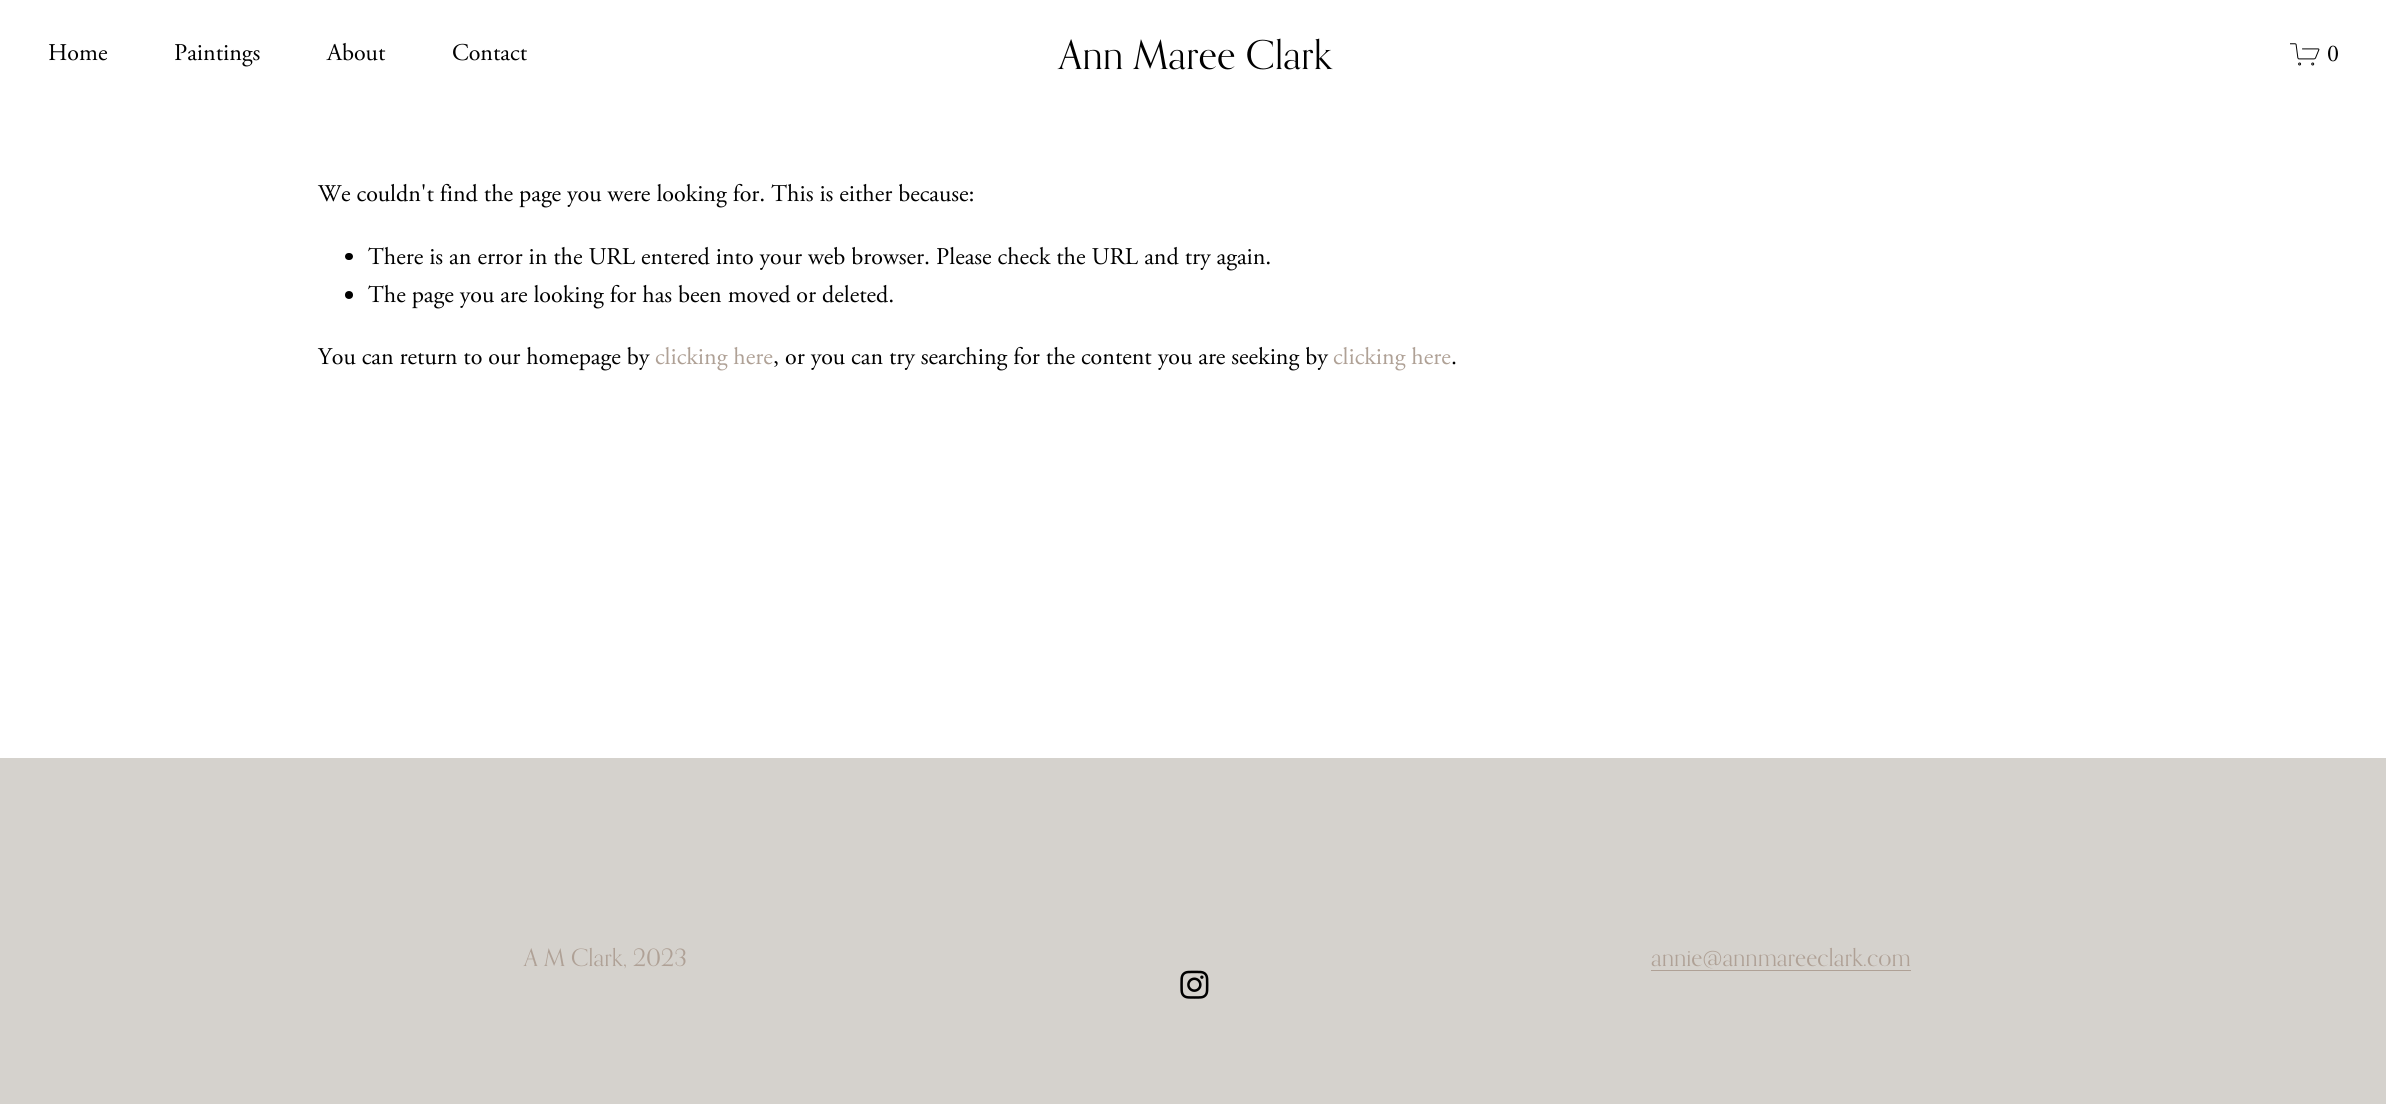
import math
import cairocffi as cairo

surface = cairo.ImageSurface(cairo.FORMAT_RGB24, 2386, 1104)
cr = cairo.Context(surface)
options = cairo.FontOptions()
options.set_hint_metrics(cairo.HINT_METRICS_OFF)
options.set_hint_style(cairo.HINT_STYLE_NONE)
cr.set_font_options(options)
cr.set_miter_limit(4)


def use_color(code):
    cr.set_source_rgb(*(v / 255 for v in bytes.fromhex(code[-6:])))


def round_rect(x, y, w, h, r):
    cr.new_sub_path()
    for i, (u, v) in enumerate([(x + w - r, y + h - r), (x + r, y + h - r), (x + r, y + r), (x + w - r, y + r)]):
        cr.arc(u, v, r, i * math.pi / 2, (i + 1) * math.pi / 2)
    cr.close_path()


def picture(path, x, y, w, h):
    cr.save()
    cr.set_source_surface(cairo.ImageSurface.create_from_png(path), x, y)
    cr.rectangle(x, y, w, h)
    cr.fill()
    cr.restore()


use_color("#ffffff")
cr.paint()
cr.select_font_face("Adobe Garamond")
cr.set_font_size(24)
use_color("#000000")
cr.move_to(48, 60)
cr.show_text("Home")
cr.move_to(174, 60)
cr.show_text("Paintings")
cr.move_to(327, 60)
cr.show_text("About")
cr.move_to(452, 60)
cr.show_text("Contact")
cr.select_font_face("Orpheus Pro")
cr.set_font_size(40)
cr.move_to(1059, 69)
cr.show_text("Ann Maree Clark")
picture("img1.png", 2290, 43, 30, 23)
cr.select_font_face("Adobe Garamond")
cr.set_font_size(24)
cr.move_to(2327, 61)
cr.show_text("0")
cr.move_to(318, 201)
cr.show_text("We couldn't find the page you were looking for. This is either because:")
round_rect(345, 253, 8, 7, 3.5)
cr.fill()
cr.move_to(368, 264)
cr.show_text("There is an error in the URL entered into your web browser. Please check the URL and try again.")
cr.new_path()
cr.arc(349, 295, 4, 0, 2 * math.pi)
cr.fill()
cr.move_to(368, 302)
cr.show_text("The page you are looking for has been moved or deleted.")
cr.move_to(318, 364)
cr.show_text("You can return to our homepage by")
use_color("#afa196")
cr.move_to(655, 364)
cr.show_text("clicking here")
use_color("#000000")
cr.move_to(773, 364)
cr.show_text(", or you can try searching for the content you are seeking by")
use_color("#afa196")
cr.move_to(1333, 364)
cr.show_text("clicking here")
use_color("#000000")
cr.move_to(1451, 364)
cr.show_text(".")
use_color("#d5d2cd")
cr.rectangle(0, 758, 2386, 346)
cr.fill()
cr.select_font_face("Orpheus Pro")
use_color("#afa196")
cr.move_to(524, 966)
cr.show_text("A M Clark, 2023")
cr.move_to(1651, 966)
cr.show_text("annie@annmareeclark.com")
cr.rectangle(1651, 970, 260, 1)
cr.fill()
picture("img2.png", 1180, 970, 29, 29)
surface.write_to_png("result.png")
